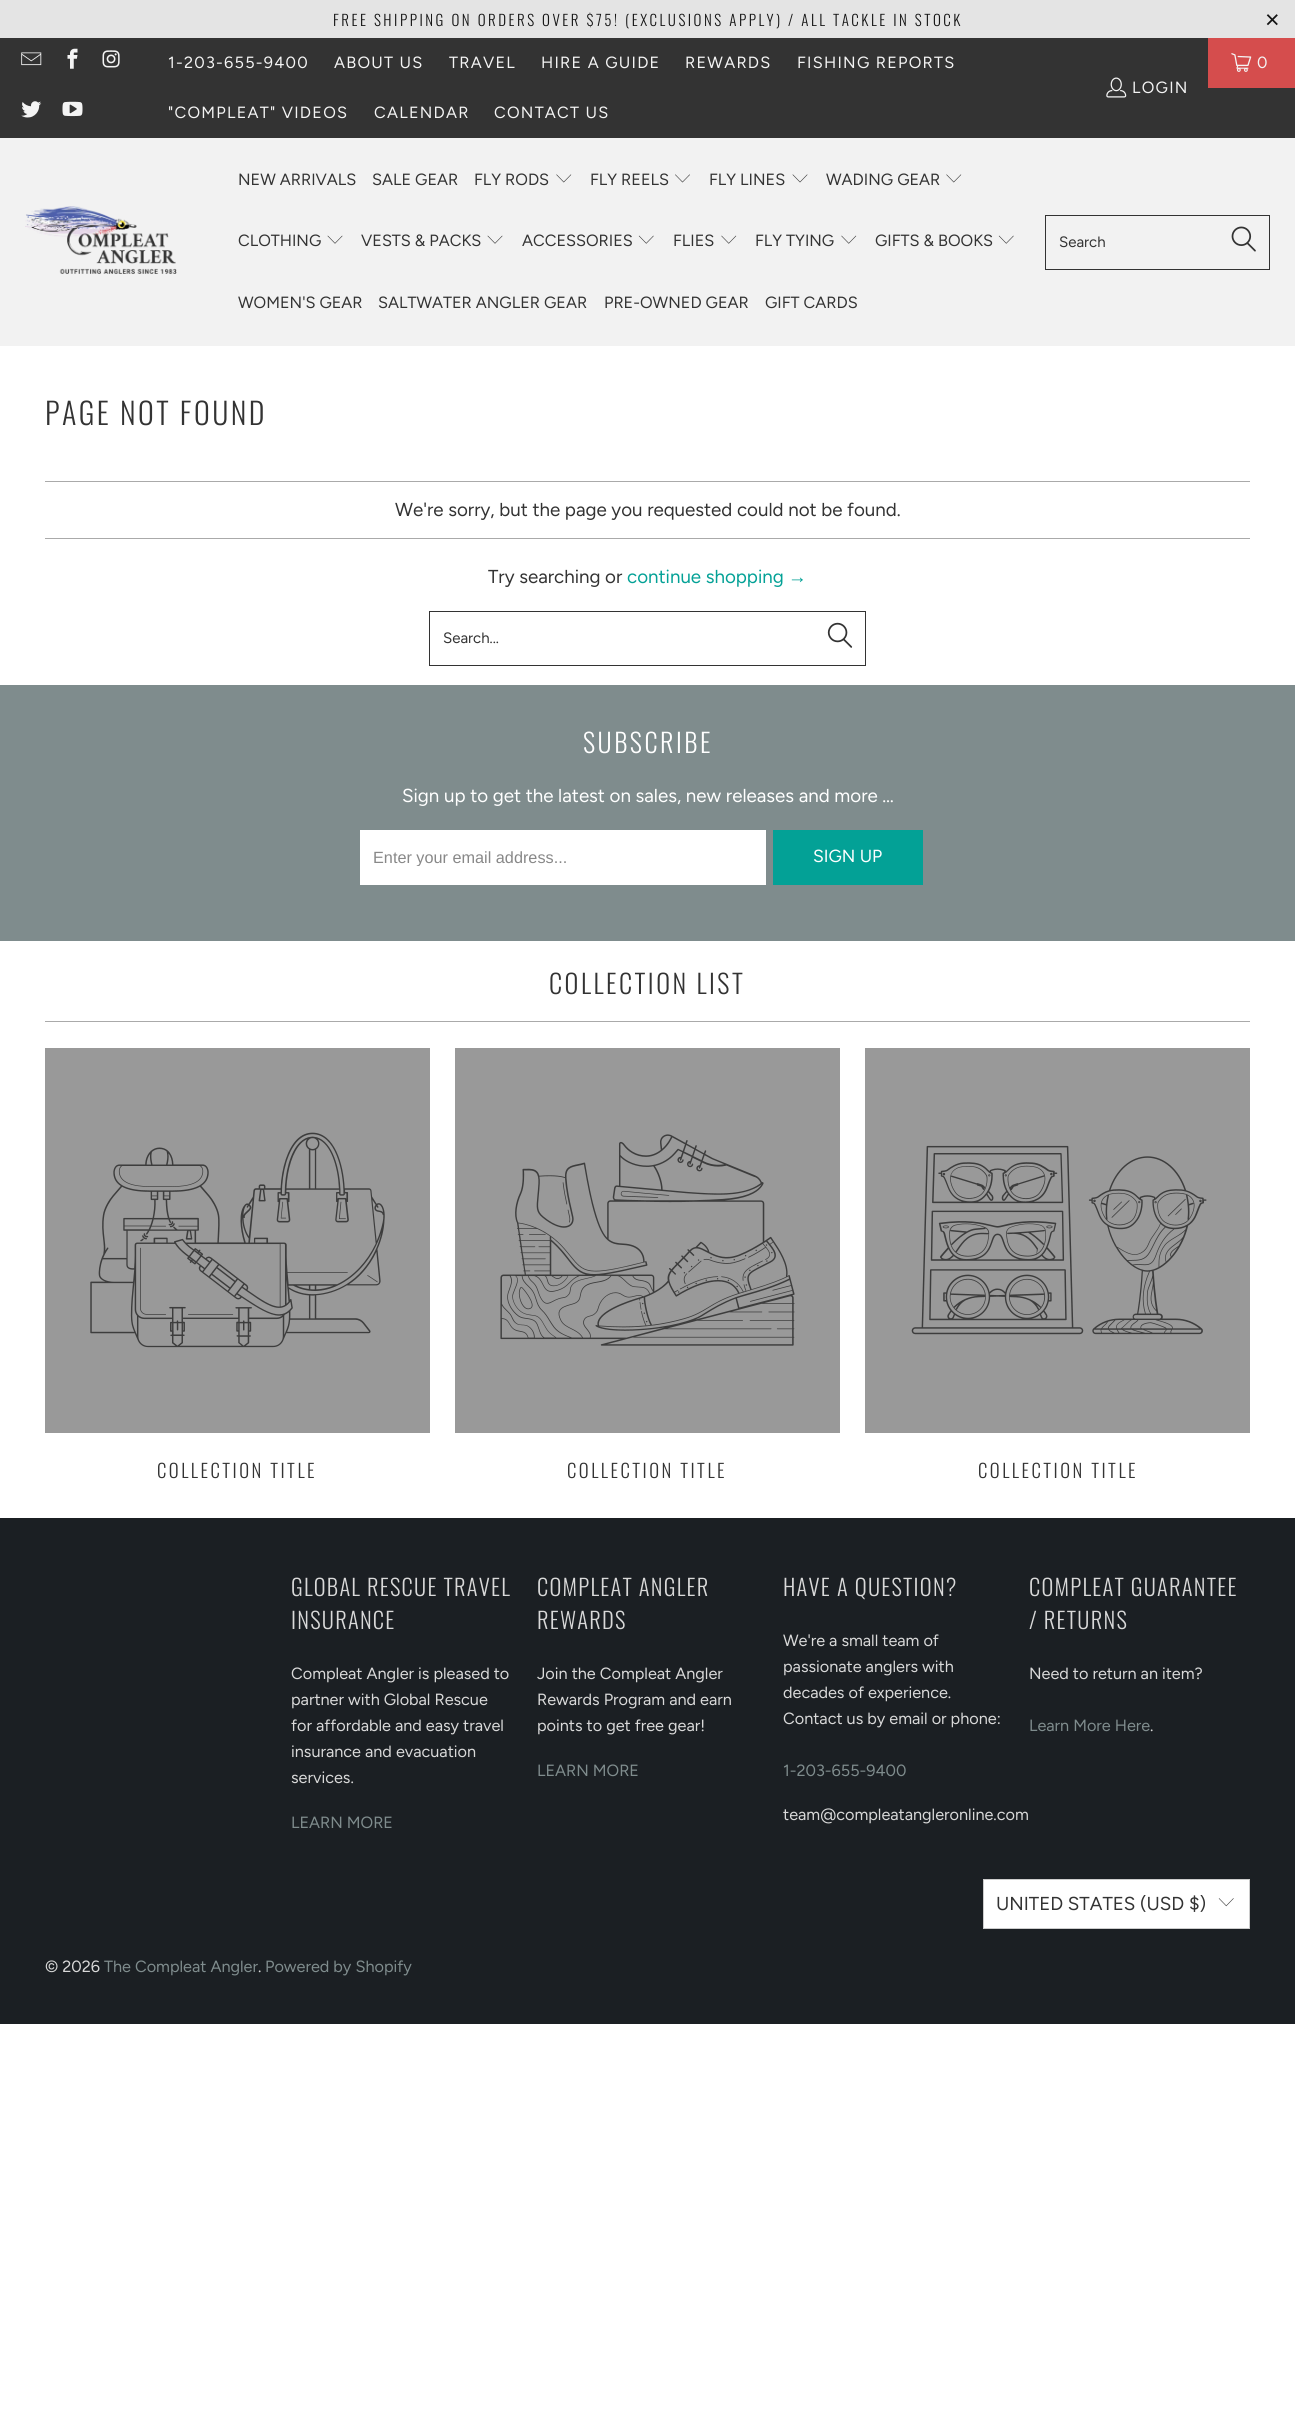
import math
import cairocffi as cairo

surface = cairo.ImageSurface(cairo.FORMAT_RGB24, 1295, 2436)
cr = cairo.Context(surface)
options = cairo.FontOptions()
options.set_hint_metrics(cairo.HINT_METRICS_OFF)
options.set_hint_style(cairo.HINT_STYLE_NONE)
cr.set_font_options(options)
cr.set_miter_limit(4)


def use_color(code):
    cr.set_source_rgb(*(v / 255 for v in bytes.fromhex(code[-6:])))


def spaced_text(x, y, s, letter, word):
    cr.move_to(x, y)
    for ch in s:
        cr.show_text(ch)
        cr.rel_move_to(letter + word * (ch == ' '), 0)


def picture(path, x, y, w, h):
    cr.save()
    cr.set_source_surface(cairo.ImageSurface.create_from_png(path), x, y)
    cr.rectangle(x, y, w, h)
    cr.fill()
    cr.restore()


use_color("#ffffff")
cr.paint()
use_color("#e4e4e4")
cr.rectangle(0, 0, 1295, 38)
cr.fill()
cr.select_font_face("Oswald Light")
cr.set_font_size(15)
use_color("#151515")
spaced_text(333, 26, "FREE SHIPPING ON ORDERS OVER $75! (EXCLUSIONS APPLY) / ALL TACKLE IN STOCK", 2.5, 0)
cr.select_font_face("Liberation Sans")
cr.set_font_size(25)
spaced_text(1265, 28, "×", 2.5, 0)
use_color("#333333")
cr.rectangle(0, 38, 1295, 100)
cr.fill()
picture("img1.png", 21, 52, 21, 14)
picture("img2.png", 67, 48, 11, 21)
picture("img3.png", 102, 50, 18, 18)
picture("img4.png", 21, 101, 21, 17)
picture("img5.png", 62, 101, 21, 16)
cr.select_font_face("Figtree")
cr.set_font_size(16.25)
use_color("#f4f4f4")
spaced_text(168, 68, "1-203-655-9400", 1.25, 0)
spaced_text(334, 68, "ABOUT US", 1.25, 0)
spaced_text(449, 68, "TRAVEL", 1.25, 0)
spaced_text(541, 68, "HIRE A GUIDE", 1.25, 0)
spaced_text(685, 68, "REWARDS", 1.25, 0)
spaced_text(797, 68, "FISHING REPORTS", 1.25, 0)
spaced_text(168, 118, "\"COMPLEAT\" VIDEOS", 1.25, 0)
spaced_text(374, 118, "CALENDAR", 1.25, 0)
spaced_text(494, 118, "CONTACT US", 1.25, 0)
use_color("#d54d4d")
cr.rectangle(1208, 38, 87, 50)
cr.fill()
picture("img6.png", 1231, 53, 21, 19)
use_color("#f4f4f4")
spaced_text(1257, 68, "0", 1.25, 0)
picture("img7.png", 1106, 77, 21, 21)
spaced_text(1132, 93, "LOGIN", 1.25, 0)
use_color("#f2f2f2")
cr.rectangle(0, 138, 1295, 208)
cr.fill()
picture("img8.png", 25, 206, 152, 68)
use_color("#333333")
cr.move_to(238, 185)
cr.show_text("NEW ARRIVALS")
cr.move_to(372, 185)
cr.show_text("SALE GEAR")
cr.move_to(474, 185)
cr.show_text("FLY RODS")
picture("img9.png", 556, 174, 16, 9)
cr.move_to(590, 185)
cr.show_text("FLY REELS")
picture("img10.png", 675, 174, 15, 9)
cr.move_to(709, 185)
cr.show_text("FLY LINES")
picture("img11.png", 792, 174, 16, 9)
cr.move_to(826, 185)
cr.show_text("WADING GEAR")
picture("img9.png", 946, 174, 16, 9)
cr.move_to(238, 246)
cr.show_text("CLOTHING")
picture("img12.png", 327, 235, 16, 9)
cr.move_to(361, 246)
cr.show_text("VESTS & PACKS")
picture("img12.png", 487, 235, 16, 9)
cr.move_to(522, 246)
cr.show_text("ACCESSORIES")
picture("img13.png", 638, 235, 16, 9)
cr.move_to(673, 246)
cr.show_text("FLIES")
picture("img14.png", 721, 235, 16, 9)
cr.move_to(755, 246)
cr.show_text("FLY TYING")
picture("img14.png", 841, 235, 16, 9)
cr.move_to(875, 246)
cr.show_text("GIFTS & BOOKS")
picture("img13.png", 998, 235, 16, 9)
cr.move_to(238, 308)
cr.show_text("WOMEN'S GEAR")
cr.move_to(378, 308)
cr.show_text("SALTWATER ANGLER GEAR")
cr.move_to(604, 308)
cr.show_text("PRE-OWNED GEAR")
cr.move_to(765, 308)
cr.show_text("GIFT CARDS")
cr.rectangle(1045.5, 215.5, 224, 54)
cr.set_line_width(1)
cr.stroke()
cr.set_font_size(15)
cr.move_to(1059, 247)
cr.show_text("Search")
picture("img15.png", 1231, 226, 25, 26)
cr.select_font_face("Oswald Light")
cr.set_font_size(30)
spaced_text(45, 425, "PAGE NOT FOUND", 2.5, 0)
use_color("#aaaaaa")
cr.rectangle(45, 481, 1205, 1)
cr.fill()
cr.rectangle(45, 538, 1205, 1)
cr.fill()
cr.select_font_face("Figtree")
cr.set_font_size(18.75)
use_color("#333333")
cr.move_to(395, 516)
cr.show_text("We're sorry, but the page you requested could not be found.")
cr.move_to(488, 583)
cr.show_text("Try searching or")
use_color("#03a196")
cr.move_to(627, 583)
cr.show_text("continue shopping")
cr.select_font_face("Liberation Sans")
cr.move_to(788, 583)
cr.show_text("→")
cr.rectangle(429.5, 611.5, 436, 54)
use_color("#333333")
cr.stroke()
cr.select_font_face("Figtree")
cr.set_font_size(15)
cr.move_to(443, 643)
cr.show_text("Search...")
picture("img16.png", 827, 622, 26, 26)
use_color("#7f8c8d")
cr.rectangle(0, 685, 1295, 256)
cr.fill()
cr.select_font_face("Oswald Light")
cr.set_font_size(26.25)
use_color("#ffffff")
spaced_text(583, 753, "SUBSCRIBE", 2.5, 0)
cr.select_font_face("Figtree")
cr.set_font_size(18.75)
cr.move_to(402, 802)
cr.show_text("Sign up to get the latest on sales, new releases and more …")
cr.rectangle(360, 830, 406, 55)
cr.fill()
cr.save()
cr.rectangle(373, 848, 381, 18)
cr.clip()
cr.select_font_face("Liberation Sans")
cr.set_font_size(16.25)
use_color("#888888")
cr.move_to(373, 863)
cr.show_text("Enter your email address...")
cr.restore()
use_color("#03a196")
cr.rectangle(773, 830, 150, 55)
cr.fill()
cr.set_font_size(17.5)
use_color("#ffffff")
cr.move_to(813, 862)
cr.show_text("SIGN UP")
cr.select_font_face("Oswald Light")
cr.set_font_size(26.25)
use_color("#333333")
spaced_text(549, 994, "COLLECTION LIST", 2.5, 0)
use_color("#aaaaaa")
cr.rectangle(45, 1021, 1205, 1)
cr.fill()
use_color("#999999")
cr.rectangle(45, 1048, 385, 385)
cr.fill()
picture("img17.png", 90, 1132, 295, 216)
cr.set_font_size(18.75)
use_color("#333333")
spaced_text(157, 1478, "COLLECTION TITLE", 2.5, 0)
use_color("#999999")
cr.rectangle(455, 1048, 385, 385)
cr.fill()
picture("img18.png", 500, 1134, 295, 212)
use_color("#333333")
spaced_text(567, 1478, "COLLECTION TITLE", 2.5, 0)
use_color("#999999")
cr.rectangle(865, 1048, 385, 385)
cr.fill()
picture("img19.png", 911, 1145, 296, 190)
use_color("#333333")
spaced_text(978, 1478, "COLLECTION TITLE", 2.5, 0)
use_color("#1b1f23")
cr.rectangle(0, 1518, 1295, 506)
cr.fill()
cr.set_font_size(22.5)
use_color("#d9d9d9")
spaced_text(291, 1596, "GLOBAL RESCUE TRAVEL", 1.25, 0)
spaced_text(291, 1629, "INSURANCE", 1.25, 0)
cr.select_font_face("Figtree")
cr.set_font_size(16.25)
cr.move_to(291, 1679)
cr.show_text("Compleat Angler is pleased to")
cr.move_to(291, 1705)
cr.show_text("partner with Global Rescue")
cr.move_to(291, 1731)
cr.show_text("for affordable and easy travel")
cr.move_to(291, 1757)
cr.show_text("insurance and evacuation")
cr.move_to(291, 1783)
cr.show_text("services.")
use_color("#7f8c8d")
cr.move_to(291, 1828)
cr.show_text("LEARN MORE")
cr.select_font_face("Oswald Light")
cr.set_font_size(22.5)
use_color("#d9d9d9")
spaced_text(537, 1596, "COMPLEAT ANGLER", 1.25, 0)
spaced_text(537, 1629, "REWARDS", 1.25, 0)
cr.select_font_face("Figtree")
cr.set_font_size(16.25)
cr.move_to(537, 1679)
cr.show_text("Join the Compleat Angler")
cr.move_to(537, 1705)
cr.show_text("Rewards Program and earn")
cr.move_to(537, 1731)
cr.show_text("points to get free gear!")
use_color("#7f8c8d")
cr.move_to(537, 1776)
cr.show_text("LEARN MORE")
cr.select_font_face("Oswald Light")
cr.set_font_size(22.5)
use_color("#d9d9d9")
spaced_text(783, 1596, "HAVE A QUESTION?", 1.25, 0)
cr.select_font_face("Figtree")
cr.set_font_size(16.25)
cr.move_to(783, 1646)
cr.show_text("We're a small team of")
cr.move_to(783, 1672)
cr.show_text("passionate anglers with")
cr.move_to(783, 1698)
cr.show_text("decades of experience.")
cr.move_to(783, 1724)
cr.show_text("Contact us by email or phone:")
use_color("#7f8c8d")
cr.move_to(783, 1776)
cr.show_text("1-203-655-9400")
use_color("#d9d9d9")
cr.move_to(783, 1820)
cr.show_text("team@compleatangleronline.com")
cr.select_font_face("Oswald Light")
cr.set_font_size(22.5)
spaced_text(1029, 1596, "COMPLEAT GUARANTEE", 1.25, 0)
spaced_text(1029, 1629, "/ RETURNS", 1.25, 0)
cr.select_font_face("Figtree")
cr.set_font_size(16.25)
cr.move_to(1029, 1679)
cr.show_text("Need to return an item?")
use_color("#7f8c8d")
cr.move_to(1029, 1731)
cr.show_text("Learn More Here")
use_color("#d9d9d9")
cr.move_to(1150, 1731)
cr.show_text(".")
use_color("#ffffff")
cr.rectangle(983.5, 1879.5, 266, 49)
cr.fill_preserve()
use_color("#cccccc")
cr.stroke()
cr.set_font_size(18.75)
use_color("#333333")
cr.move_to(996, 1910)
cr.show_text("UNITED STATES (USD $)")
picture("img20.png", 1218, 1898, 16, 9)
cr.set_font_size(16.25)
use_color("#d9d9d9")
cr.move_to(45, 1972)
cr.show_text("© 2026")
use_color("#7f8c8d")
cr.move_to(104, 1972)
cr.show_text("The Compleat Angler")
use_color("#d9d9d9")
cr.move_to(258, 1972)
cr.show_text(".")
use_color("#7f8c8d")
cr.move_to(265, 1972)
cr.show_text("Powered by Shopify")
surface.write_to_png("result.png")
